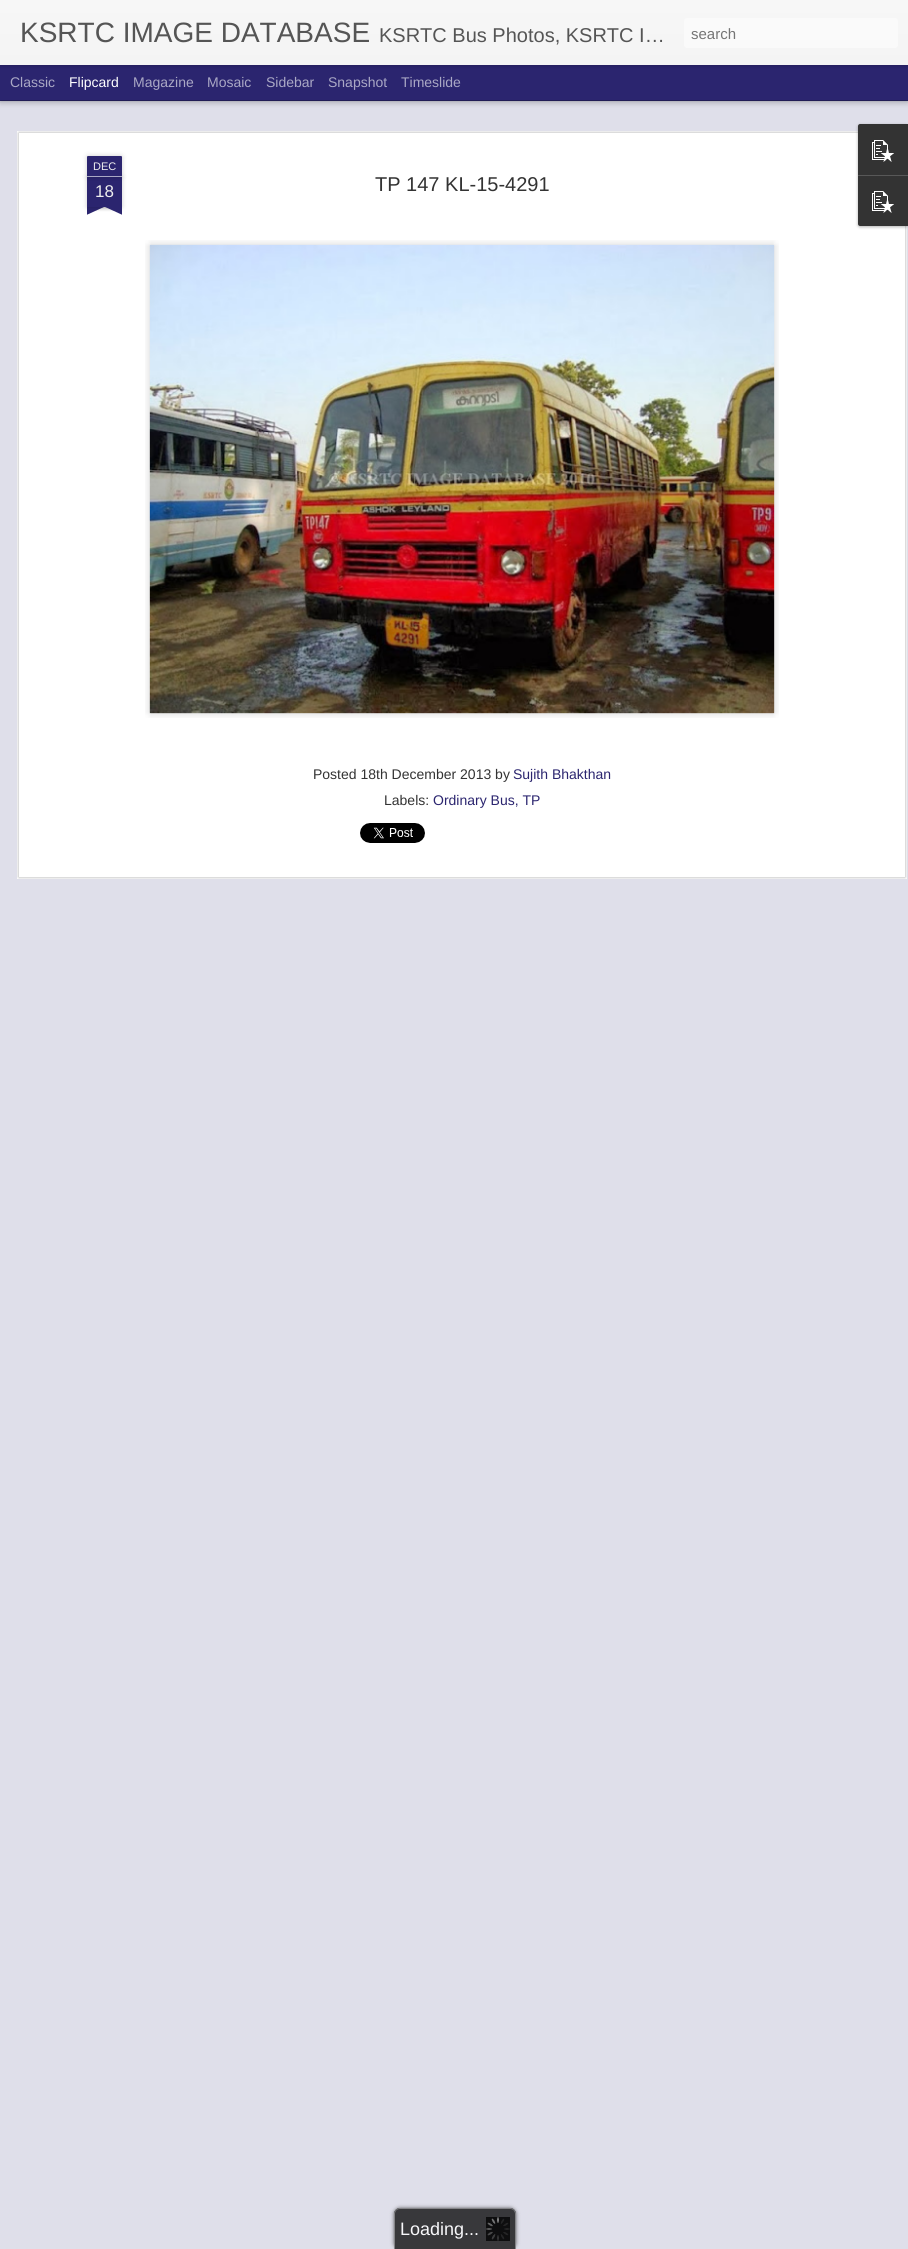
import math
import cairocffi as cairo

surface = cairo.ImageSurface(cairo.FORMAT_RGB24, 908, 2249)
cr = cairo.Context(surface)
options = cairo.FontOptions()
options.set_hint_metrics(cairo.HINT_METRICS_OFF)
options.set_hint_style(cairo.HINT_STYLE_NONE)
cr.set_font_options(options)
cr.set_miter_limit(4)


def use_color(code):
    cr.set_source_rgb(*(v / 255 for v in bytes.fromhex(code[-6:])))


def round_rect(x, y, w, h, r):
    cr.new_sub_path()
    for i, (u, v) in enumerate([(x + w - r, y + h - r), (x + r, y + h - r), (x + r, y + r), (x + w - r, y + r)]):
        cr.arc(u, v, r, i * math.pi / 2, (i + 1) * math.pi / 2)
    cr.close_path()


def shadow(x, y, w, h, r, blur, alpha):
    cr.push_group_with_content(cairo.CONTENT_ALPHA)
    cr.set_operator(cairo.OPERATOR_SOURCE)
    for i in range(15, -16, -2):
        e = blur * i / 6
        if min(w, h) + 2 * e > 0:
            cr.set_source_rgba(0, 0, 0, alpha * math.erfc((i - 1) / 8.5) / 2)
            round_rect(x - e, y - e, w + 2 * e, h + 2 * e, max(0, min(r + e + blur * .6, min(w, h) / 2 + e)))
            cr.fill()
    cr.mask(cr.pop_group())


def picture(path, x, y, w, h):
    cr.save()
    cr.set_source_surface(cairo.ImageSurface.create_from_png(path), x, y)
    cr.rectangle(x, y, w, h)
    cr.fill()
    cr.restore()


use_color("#2b256f")
cr.paint()
use_color("#dfdfea")
cr.rectangle(0, 101, 908, 2148)
cr.fill()
use_color("#000000")
shadow(0, 65, 908, 35, 0, 4, 0.5)
use_color("#2b256f")
cr.rectangle(0, 65, 908, 35)
cr.fill()
use_color("#000000")
shadow(0, 0, 908, 65, 0, 2.5, 0.3)
gradient = cairo.LinearGradient(0, 0, 0, 65)
gradient.add_color_stop_rgba(0, 0.969, 0.969, 0.969, 1)
gradient.add_color_stop_rgba(1, 0.957, 0.957, 0.957, 1)
cr.set_source(gradient)
cr.rectangle(0, 0, 908, 65)
cr.fill()
cr.select_font_face("Liberation Sans")
cr.set_font_size(28)
use_color("#555555")
cr.move_to(20, 42)
cr.show_text("KSRTC IMAGE DATABASE")
cr.set_font_size(20)
cr.move_to(379, 42)
cr.show_text("KSRTC Bus Photos, KSRTC I…")
use_color("#fafafa")
round_rect(684, 18, 214, 30, 3)
cr.fill()
cr.set_font_size(15)
use_color("#757575")
cr.move_to(691, 39)
cr.show_text("search")
cr.set_font_size(14)
use_color("#aaa8c5")
cr.move_to(10, 87)
cr.show_text("Classic")
use_color("#ffffff")
cr.move_to(69, 87)
cr.show_text("Flipcard")
use_color("#aaa8c5")
cr.move_to(133, 87)
cr.show_text("Magazine")
cr.move_to(207, 87)
cr.show_text("Mosaic")
cr.move_to(266, 87)
cr.show_text("Sidebar")
cr.move_to(328, 87)
cr.show_text("Snapshot")
cr.move_to(401, 87)
cr.show_text("Timeslide")
use_color("#ffffff")
cr.rectangle(17, 131, 890, 748)
cr.fill()
picture("img1.png", 17, 131, 890, 748)
use_color("#000000")
shadow(87, 177, 35, 30, 0, 2.5, 0.2)
use_color("#2b256f")
cr.rectangle(87, 177, 35, 30)
cr.fill()
use_color("#000000")
shadow(87, 156, 35, 21, 1, 2.5, 0.2)
use_color("#2b256f")
cr.new_path()
cr.move_to(88, 156)
cr.line_to(121, 156)
cr.curve_to(121.5, 156, 122, 156.5, 122, 157)
cr.line_to(122, 177)
cr.line_to(87, 177)
cr.line_to(87, 157)
cr.curve_to(87, 156.5, 87.5, 156, 88, 156)
cr.close_path()
cr.fill()
use_color("#aaa8c5")
cr.rectangle(87, 176, 35, 1)
cr.fill()
cr.set_font_size(11)
use_color("#eeeeee")
cr.move_to(93, 170)
cr.show_text("DEC")
cr.set_font_size(17)
cr.move_to(95, 197)
cr.show_text("18")
cr.save()
cr.rectangle(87, 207, 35, 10)
cr.clip()
use_color("#000000")
shadow(78, 197, 50, 10, 0, 2.5, 0.2)
cr.restore()
cr.save()
cr.rectangle(87, 207, 35, 10)
cr.clip()
use_color("#2b256f")
cr.new_path()
cr.move_to(78, 208)
cr.line_to(124, 187)
cr.line_to(128, 196)
cr.line_to(82, 217)
cr.close_path()
cr.fill()
cr.restore()
cr.save()
cr.rectangle(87, 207, 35, 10)
cr.clip()
use_color("#000000")
shadow(81, 197, 50, 10, 0, 2.5, 0.2)
cr.restore()
cr.save()
cr.rectangle(87, 207, 35, 10)
cr.clip()
use_color("#2b256f")
cr.new_path()
cr.move_to(85, 187)
cr.line_to(131, 208)
cr.line_to(127, 217)
cr.line_to(81, 196)
cr.close_path()
cr.fill()
cr.restore()
cr.set_font_size(20)
use_color("#333333")
cr.move_to(375, 191)
cr.show_text("TP 147 KL-15-4291")
picture("img2.png", 145, 240, 634, 478)
picture("img3.png", 149, 244, 626, 470)
cr.set_font_size(14)
cr.move_to(313, 779)
cr.show_text("Posted 18th December 2013 by")
use_color("#2b256f")
cr.move_to(513, 779)
cr.show_text("Sujith Bhakthan")
use_color("#333333")
cr.move_to(384, 805)
cr.show_text("Labels:")
use_color("#2b256f")
cr.move_to(433, 805)
cr.show_text("Ordinary Bus, TP")
picture("img4.png", 360, 823, 65, 20)
use_color("#000000")
shadow(858, 125, 50, 102, 2, 1.5, 0.3)
use_color("#333333")
cr.new_path()
cr.move_to(860, 124)
cr.line_to(908, 124)
cr.line_to(908, 175)
cr.line_to(858, 175)
cr.line_to(858, 126)
cr.curve_to(858, 125, 859, 124, 860, 124)
cr.close_path()
cr.fill()
picture("img5.png", 872, 140, 22, 22)
cr.new_path()
cr.move_to(858, 175)
cr.line_to(908, 175)
cr.line_to(908, 226)
cr.line_to(860, 226)
cr.curve_to(859, 226, 858, 225, 858, 224)
cr.close_path()
cr.fill()
use_color("#585858")
cr.rectangle(858, 175, 50, 1)
cr.fill()
picture("img5.png", 872, 191, 22, 22)
use_color("#5e5e61")
shadow(394, 2208, 122, 41, 6, 2, 1)
use_color("#38383b")
cr.new_path()
cr.move_to(400, 2208)
cr.line_to(510, 2208)
cr.curve_to(513.5, 2208, 516, 2210.5, 516, 2214)
cr.line_to(516, 2249)
cr.line_to(394, 2249)
cr.line_to(394, 2214)
cr.curve_to(394, 2210.5, 396.5, 2208, 400, 2208)
cr.close_path()
cr.fill()
use_color("#848487")
cr.set_fill_rule(cairo.FILL_RULE_EVEN_ODD)
cr.new_path()
cr.move_to(400, 2208)
cr.line_to(510, 2208)
cr.curve_to(513, 2208, 516, 2211, 516, 2214)
cr.line_to(516, 2249)
cr.line_to(394, 2249)
cr.line_to(394, 2214)
cr.curve_to(394, 2211, 397, 2208, 400, 2208)
cr.close_path()
cr.move_to(400, 2209)
cr.line_to(510, 2209)
cr.curve_to(513, 2209, 515, 2211, 515, 2214)
cr.line_to(515, 2249)
cr.line_to(395, 2249)
cr.line_to(395, 2214)
cr.curve_to(395, 2211, 397, 2209, 400, 2209)
cr.close_path()
cr.fill()
picture("img6.png", 486, 2217, 24, 24)
cr.set_font_size(18)
use_color("#f7f7fa")
cr.move_to(400, 2235)
cr.show_text("Loading...")
surface.write_to_png("result.png")
